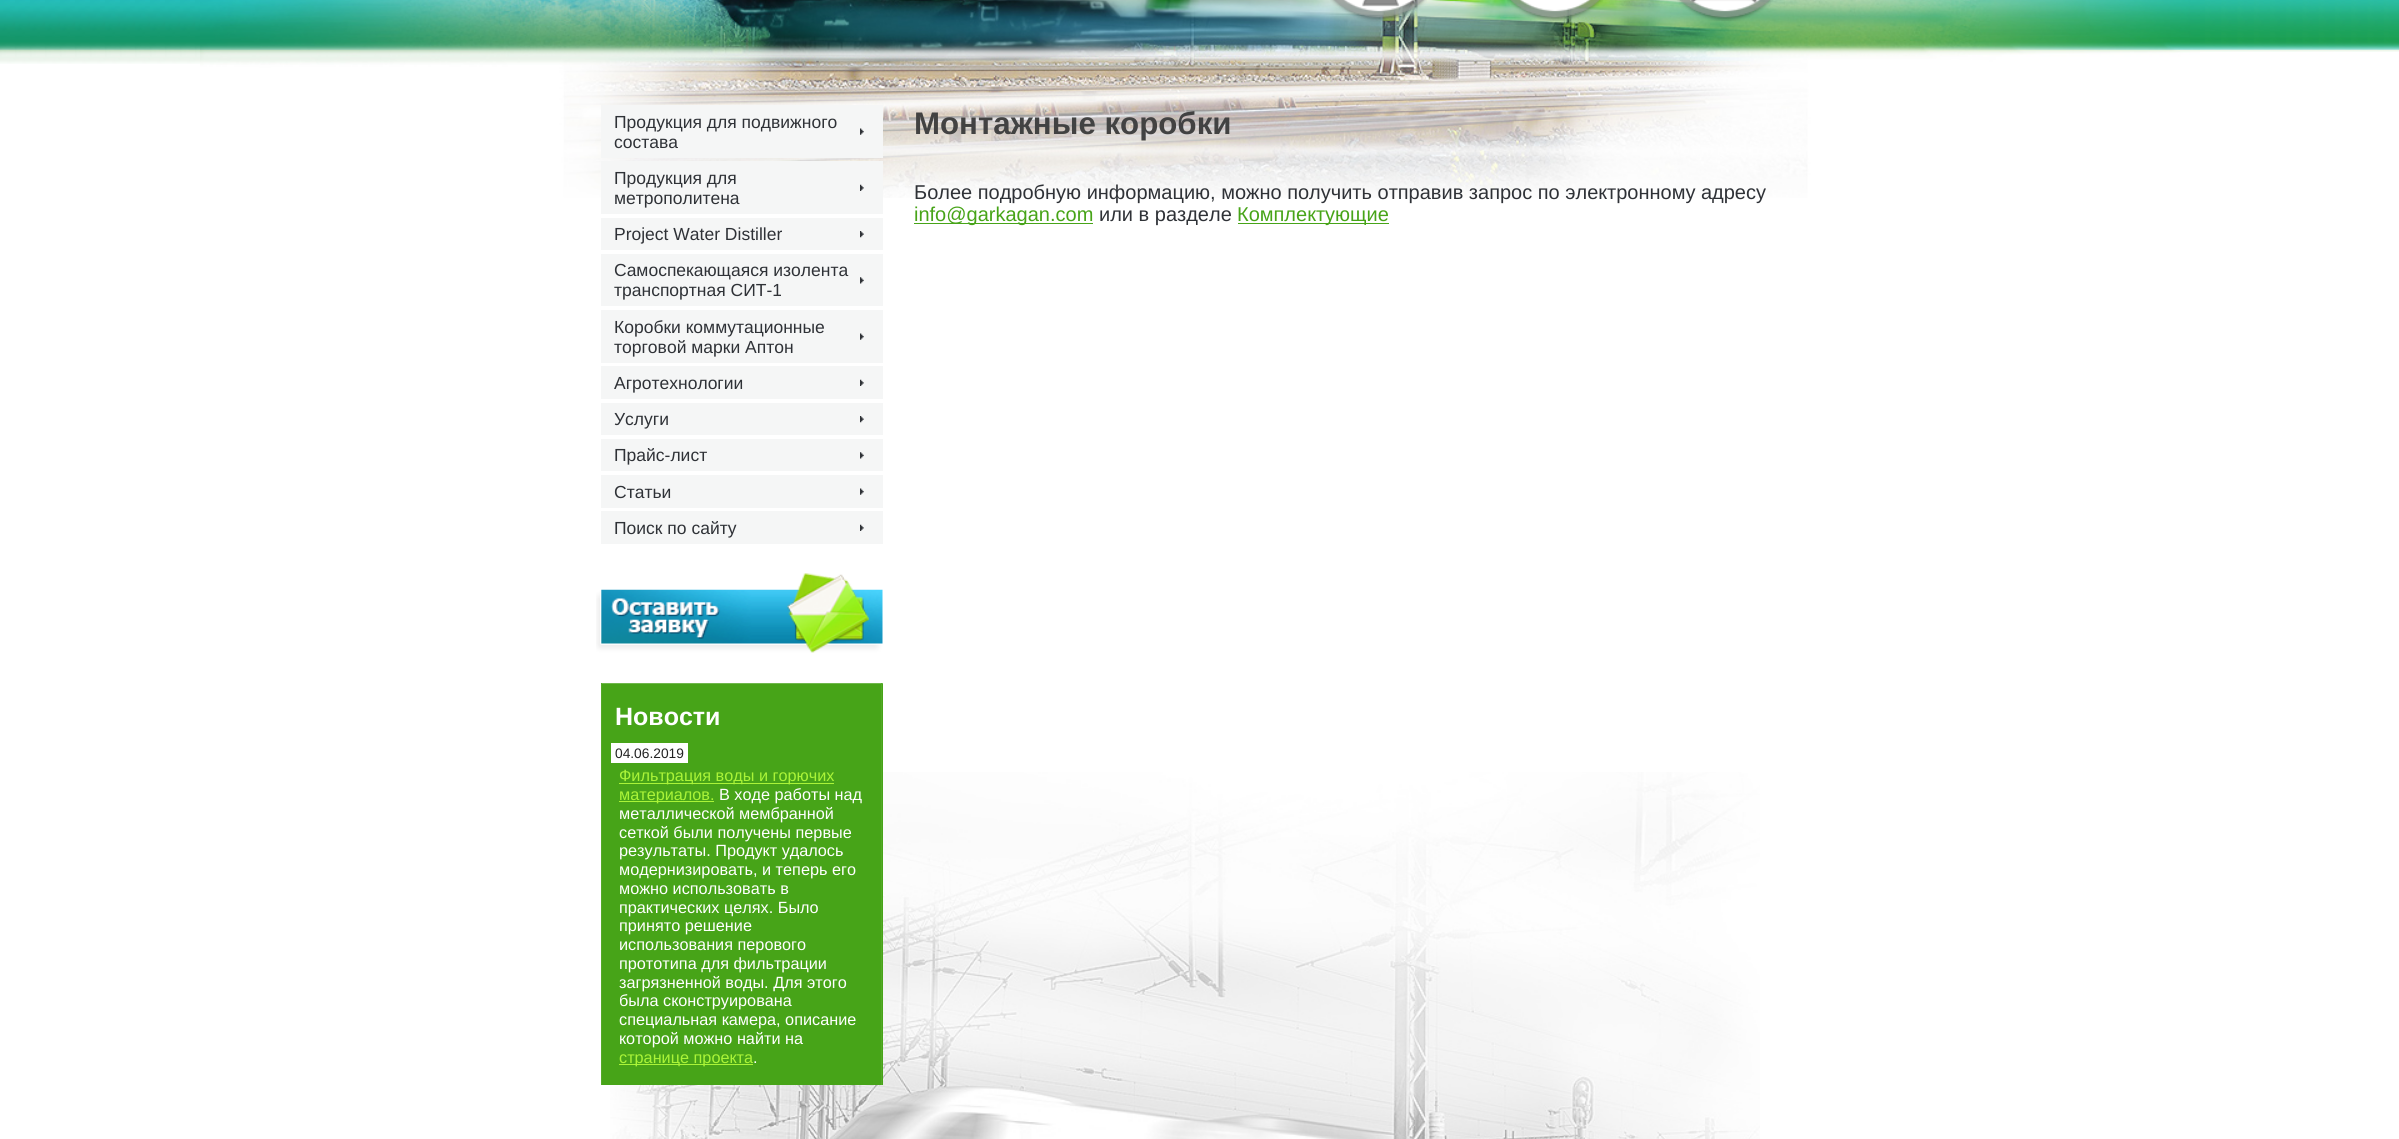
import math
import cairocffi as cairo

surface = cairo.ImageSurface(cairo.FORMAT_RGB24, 2399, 1139)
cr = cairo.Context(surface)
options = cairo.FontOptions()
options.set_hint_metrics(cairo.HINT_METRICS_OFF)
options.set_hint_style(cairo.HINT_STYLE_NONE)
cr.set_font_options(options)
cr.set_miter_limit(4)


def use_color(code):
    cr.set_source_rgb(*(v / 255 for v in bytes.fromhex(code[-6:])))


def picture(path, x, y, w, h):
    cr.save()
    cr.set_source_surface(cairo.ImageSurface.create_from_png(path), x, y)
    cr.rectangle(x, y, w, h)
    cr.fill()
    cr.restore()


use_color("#ffffff")
cr.paint()
picture("img1.png", 2200, 0, 199, 52)
picture("img2.png", 0, 0, 200, 64)
picture("img3.png", 200, 0, 2000, 198)
picture("img4.png", 1330, 0, 97, 22)
picture("img5.png", 1507, 0, 96, 21)
picture("img6.png", 1677, 0, 96, 21)
use_color("#f5f6f6")
cr.rectangle(601, 105, 282, 53)
cr.fill()
picture("img7.png", 860, 128, 4, 7)
cr.select_font_face("Liberation Sans")
cr.set_font_size(17.5)
use_color("#2f3237")
cr.move_to(614, 128)
cr.show_text("Продукция для подвижного")
cr.move_to(614, 148)
cr.show_text("состава")
use_color("#f5f6f6")
cr.rectangle(601, 161, 282, 53)
cr.fill()
picture("img8.png", 860, 184, 4, 7)
use_color("#2f3237")
cr.move_to(614, 184)
cr.show_text("Продукция для")
cr.move_to(614, 204)
cr.show_text("метрополитена")
use_color("#f5f6f6")
cr.rectangle(601, 218, 282, 32)
cr.fill()
picture("img9.png", 860, 231, 4, 7)
use_color("#2f3237")
cr.move_to(614, 240)
cr.show_text("Project Water Distiller")
use_color("#f5f6f6")
cr.rectangle(601, 254, 282, 52)
cr.fill()
picture("img10.png", 860, 277, 4, 7)
use_color("#2f3237")
cr.move_to(614, 276)
cr.show_text("Самоспекающаяся изолента")
cr.move_to(614, 296)
cr.show_text("транспортная СИТ-1")
use_color("#f5f6f6")
cr.rectangle(601, 310, 282, 53)
cr.fill()
picture("img7.png", 860, 333, 4, 7)
use_color("#2f3237")
cr.move_to(614, 333)
cr.show_text("Коробки коммутационные")
cr.move_to(614, 353)
cr.show_text("торговой марки Аптон")
use_color("#f5f6f6")
cr.rectangle(601, 366, 282, 33)
cr.fill()
picture("img8.png", 860, 379, 4, 7)
use_color("#2f3237")
cr.move_to(614, 389)
cr.show_text("Агротехнологии")
use_color("#f5f6f6")
cr.rectangle(601, 403, 282, 32)
cr.fill()
picture("img11.png", 860, 416, 4, 7)
use_color("#2f3237")
cr.move_to(614, 425)
cr.show_text("Услуги")
use_color("#f5f6f6")
cr.rectangle(601, 439, 282, 32)
cr.fill()
picture("img10.png", 860, 452, 4, 7)
use_color("#2f3237")
cr.move_to(614, 461)
cr.show_text("Прайс-лист")
use_color("#f5f6f6")
cr.rectangle(601, 475, 282, 33)
cr.fill()
picture("img7.png", 860, 488, 4, 7)
use_color("#2f3237")
cr.move_to(614, 498)
cr.show_text("Статьи")
use_color("#f5f6f6")
cr.rectangle(601, 511, 282, 33)
cr.fill()
picture("img8.png", 860, 524, 4, 7)
use_color("#2f3237")
cr.move_to(614, 534)
cr.show_text("Поиск по сайту")
picture("img12.png", 596, 573, 287, 80)
picture("img13.png", 610, 772, 1150, 367)
use_color("#47a418")
cr.rectangle(602, 684, 281, 401)
cr.fill()
use_color("#70b84c")
cr.rectangle(601, 683, 282, 1)
cr.fill()
use_color("#54aa28")
cr.rectangle(881, 683, 1, 402)
cr.fill()
cr.rectangle(601, 683, 1, 402)
cr.fill()
cr.select_font_face("Liberation Sans", cairo.FONT_SLANT_NORMAL, cairo.FONT_WEIGHT_BOLD)
cr.set_font_size(25)
use_color("#ffffff")
cr.move_to(615, 725)
cr.show_text("Новости")
cr.rectangle(611, 743, 77, 20)
cr.fill()
cr.select_font_face("Liberation Sans")
cr.set_font_size(13.75)
use_color("#232323")
cr.move_to(615, 758)
cr.show_text("04.06.2019")
use_color("#aaf438")
cr.rectangle(619, 783, 215, 1)
cr.fill()
cr.set_font_size(16.25)
cr.move_to(619, 781)
cr.show_text("Фильтрация воды и горючих")
cr.rectangle(619, 801, 95, 1)
cr.fill()
cr.move_to(619, 800)
cr.show_text("материалов.")
use_color("#ffffff")
cr.move_to(719, 800)
cr.show_text("В ходе работы над")
cr.move_to(619, 819)
cr.show_text("металлической мембранной")
cr.move_to(619, 838)
cr.show_text("сеткой были получены первые")
cr.move_to(619, 856)
cr.show_text("результаты. Продукт удалось")
cr.move_to(619, 875)
cr.show_text("модернизировать, и теперь его")
cr.move_to(619, 894)
cr.show_text("можно использовать в")
cr.move_to(619, 913)
cr.show_text("практических целях. Было")
cr.move_to(619, 931)
cr.show_text("принято решение")
cr.move_to(619, 950)
cr.show_text("использования перового")
cr.move_to(619, 969)
cr.show_text("прототипа для фильтрации")
cr.move_to(619, 988)
cr.show_text("загрязненной воды. Для этого")
cr.move_to(619, 1006)
cr.show_text("была сконструирована")
cr.move_to(619, 1025)
cr.show_text("специальная камера, описание")
cr.move_to(619, 1044)
cr.show_text("которой можно найти на")
use_color("#aaf438")
cr.rectangle(619, 1064, 134, 1)
cr.fill()
cr.move_to(619, 1063)
cr.show_text("странице проекта")
use_color("#ffffff")
cr.move_to(753, 1063)
cr.show_text(".")
cr.select_font_face("Liberation Sans", cairo.FONT_SLANT_NORMAL, cairo.FONT_WEIGHT_BOLD)
cr.set_font_size(31.25)
use_color("#424242")
cr.move_to(914, 134)
cr.show_text("Монтажные коробки")
cr.select_font_face("Liberation Sans")
cr.set_font_size(20)
use_color("#2f3237")
cr.move_to(914, 199)
cr.show_text("Более подробную информацию, можно получить отправив запрос по электронному адресу")
use_color("#47a418")
cr.rectangle(914, 223, 179, 1)
cr.fill()
cr.move_to(914, 221)
cr.show_text("info@garkagan.com")
use_color("#2f3237")
cr.move_to(1099, 221)
cr.show_text("или в разделе")
use_color("#47a418")
cr.rectangle(1238, 223, 151, 1)
cr.fill()
cr.move_to(1237, 221)
cr.show_text("Комплектующие")
surface.write_to_png("result.png")
